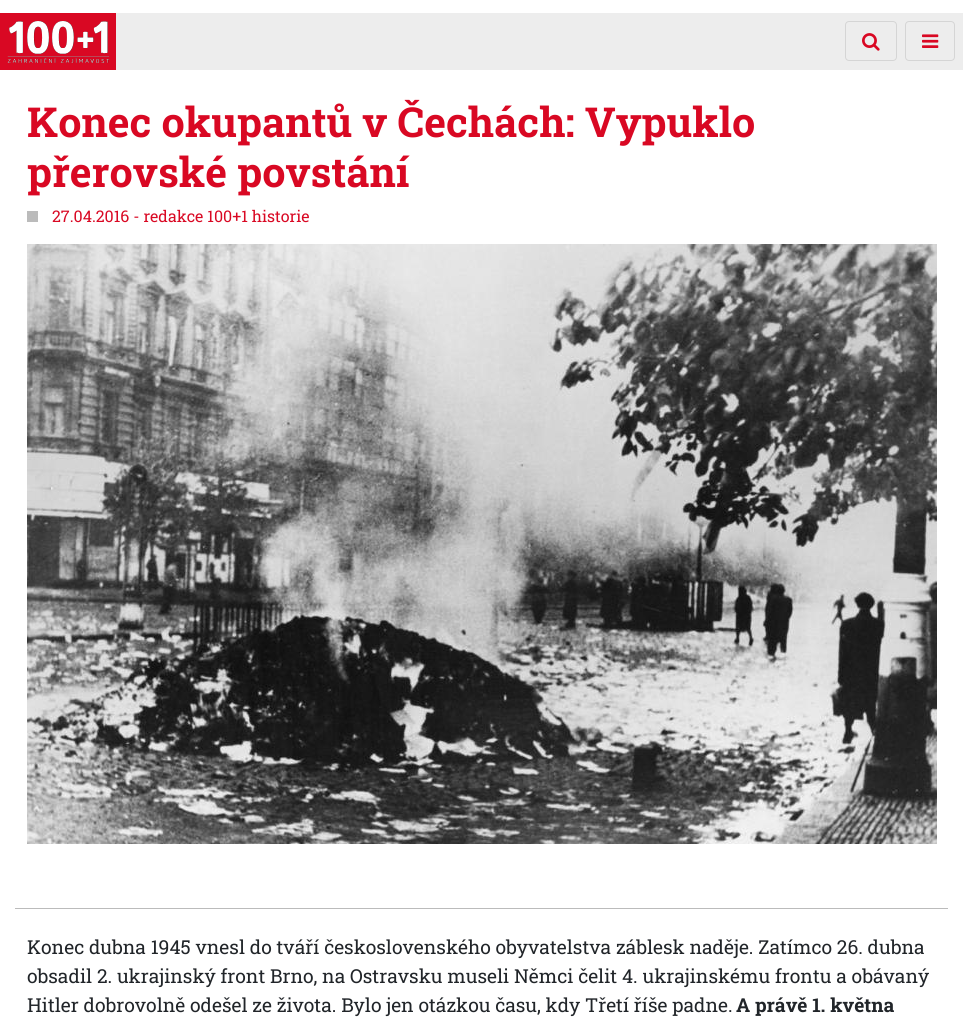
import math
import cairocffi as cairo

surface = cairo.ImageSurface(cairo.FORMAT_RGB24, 963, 1029)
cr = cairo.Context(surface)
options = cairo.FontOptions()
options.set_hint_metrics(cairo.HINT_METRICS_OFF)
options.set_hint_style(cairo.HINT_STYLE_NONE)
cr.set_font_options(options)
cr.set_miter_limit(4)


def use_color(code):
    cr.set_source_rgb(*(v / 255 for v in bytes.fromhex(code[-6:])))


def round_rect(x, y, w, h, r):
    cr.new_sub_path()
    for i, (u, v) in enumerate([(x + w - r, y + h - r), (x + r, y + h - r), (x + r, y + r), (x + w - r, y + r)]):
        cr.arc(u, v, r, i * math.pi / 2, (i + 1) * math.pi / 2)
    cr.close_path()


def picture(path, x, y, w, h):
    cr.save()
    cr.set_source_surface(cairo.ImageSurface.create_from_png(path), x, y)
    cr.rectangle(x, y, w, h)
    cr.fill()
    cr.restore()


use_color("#ffffff")
cr.paint()
use_color("#d90823")
cr.rectangle(0, 13, 116, 57)
cr.fill()
picture("img1.png", 7, 21, 103, 42)
use_color("#ededed")
cr.rectangle(116, 13, 847, 57)
cr.fill()
round_rect(845.5, 21.5, 51, 39, 3.5)
use_color("#d5d5d5")
cr.set_line_width(1)
cr.stroke()
picture("img2.png", 862, 33, 18, 18)
round_rect(905.5, 21.5, 49, 39, 3.5)
cr.stroke()
picture("img3.png", 922, 34, 17, 14)
cr.select_font_face("Roboto Slab", cairo.FONT_SLANT_NORMAL, cairo.FONT_WEIGHT_BOLD)
cr.set_font_size(41.3)
use_color("#d90823")
cr.move_to(27, 137)
cr.show_text("Konec okupantů v Čechách: Vypuklo")
cr.move_to(27, 187)
cr.show_text("přerovské povstání")
use_color("#bbbbbb")
cr.rectangle(27, 211, 11, 11)
cr.fill()
cr.select_font_face("Roboto Slab")
cr.set_font_size(16)
use_color("#d90823")
cr.move_to(52, 222)
cr.show_text("27.04.2016 - redakce 100+1 historie")
picture("img4.png", 27, 244, 910, 600)
use_color("#bbbbbb")
cr.rectangle(15, 908, 933, 1)
cr.fill()
cr.set_font_size(19.2)
use_color("#212529")
cr.move_to(27, 954)
cr.show_text("Konec dubna 1945 vnesl do tváří československého obyvatelstva záblesk naděje. Zatímco 26. dubna")
cr.move_to(27, 983)
cr.show_text("obsadil 2. ukrajinský front Brno, na Ostravsku museli Němci čelit 4. ukrajinskému frontu a obávaný")
cr.move_to(27, 1012)
cr.show_text("Hitler dobrovolně odešel ze života. Bylo jen otázkou času, kdy Třetí říše padne.")
cr.select_font_face("Roboto Slab", cairo.FONT_SLANT_NORMAL, cairo.FONT_WEIGHT_BOLD)
cr.move_to(736, 1012)
cr.show_text("A právě 1. května")
surface.write_to_png("result.png")
